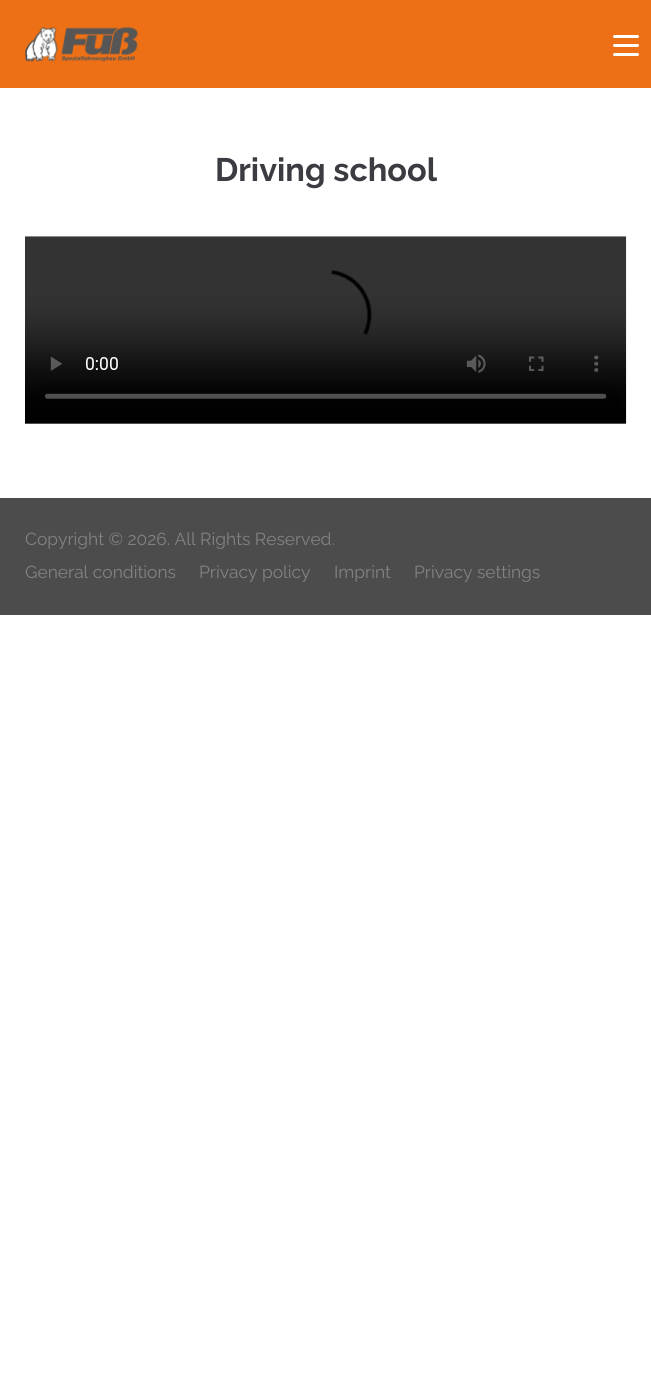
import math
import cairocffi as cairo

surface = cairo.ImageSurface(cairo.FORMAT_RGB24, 651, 1389)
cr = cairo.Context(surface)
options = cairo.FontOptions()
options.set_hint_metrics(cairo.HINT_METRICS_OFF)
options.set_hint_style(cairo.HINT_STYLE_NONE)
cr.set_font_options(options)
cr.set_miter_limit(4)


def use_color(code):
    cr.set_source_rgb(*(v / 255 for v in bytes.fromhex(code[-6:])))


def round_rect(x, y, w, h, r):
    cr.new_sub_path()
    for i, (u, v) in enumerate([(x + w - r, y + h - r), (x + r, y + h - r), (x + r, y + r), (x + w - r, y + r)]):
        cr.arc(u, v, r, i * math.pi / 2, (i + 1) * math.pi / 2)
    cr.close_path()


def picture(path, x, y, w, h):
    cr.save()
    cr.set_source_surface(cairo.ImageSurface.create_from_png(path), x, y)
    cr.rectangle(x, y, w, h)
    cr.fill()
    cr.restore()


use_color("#ffffff")
cr.paint()
use_color("#ed7016")
cr.rectangle(0, 0, 651, 88)
cr.fill()
picture("img1.png", 25, 27, 113, 35)
use_color("#ffffff")
round_rect(613, 44, 26, 3, 1.5)
cr.fill()
round_rect(613, 35, 26, 3, 1.5)
cr.fill()
round_rect(613, 53, 26, 3, 1.5)
cr.fill()
cr.select_font_face("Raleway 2 Thin")
cr.set_font_size(32.5)
use_color("#3b3c42")
cr.move_to(215, 181)
cr.show_text("Driving school")
picture("img2.png", 25, 236, 602, 188)
use_color("#4c4c4c")
cr.rectangle(0, 498, 651, 117)
cr.fill()
cr.select_font_face("Raleway Thin")
cr.set_font_size(17.4)
use_color("#828282")
cr.move_to(25, 545)
cr.show_text("Copyright © 2026. All Rights Reserved.")
cr.move_to(25, 578)
cr.show_text("General conditions")
cr.move_to(199, 578)
cr.show_text("Privacy policy")
cr.move_to(334, 578)
cr.show_text("Imprint")
cr.move_to(414, 578)
cr.show_text("Privacy settings")
surface.write_to_png("result.png")
